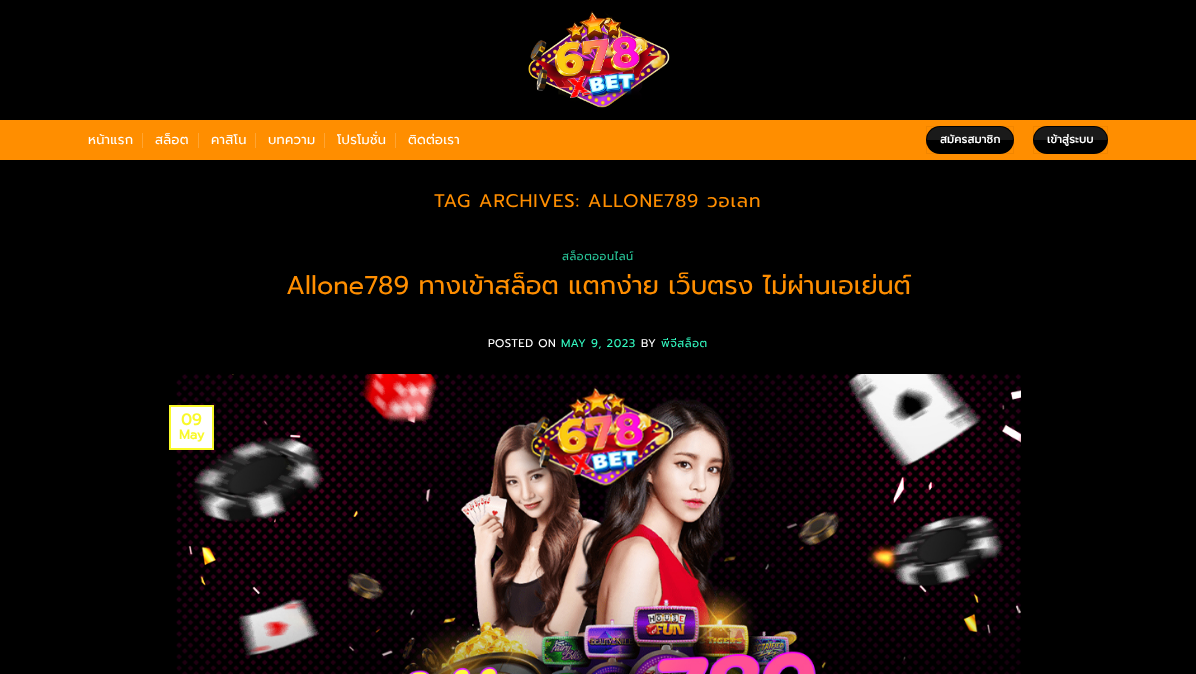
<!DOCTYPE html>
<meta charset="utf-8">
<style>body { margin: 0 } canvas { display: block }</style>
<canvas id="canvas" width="1196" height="674"></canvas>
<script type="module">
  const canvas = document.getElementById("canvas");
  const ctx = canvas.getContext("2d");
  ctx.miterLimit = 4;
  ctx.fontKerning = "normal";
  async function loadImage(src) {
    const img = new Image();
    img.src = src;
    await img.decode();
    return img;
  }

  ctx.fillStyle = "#000000";
  ctx.fillRect(0, 0, 1196, 674);
  ctx.drawImage(await loadImage("img1.png"), 528, 10, 142, 98);
  ctx.fillStyle = "#ff8e00";
  ctx.fillRect(0, 120, 1196, 40);
  ctx.letterSpacing = "0.25px";
  ctx.font = "13px Prompt";
  ctx.fillStyle = "#ffffff";
  ctx.fillText("หน้าแรก", 88, 144);
  ctx.fillStyle = "#ffa533";
  ctx.fillRect(142, 133, 1, 15);
  ctx.fillStyle = "#ffffff";
  ctx.fillText("สล็อต", 155, 144);
  ctx.fillStyle = "#ffa533";
  ctx.fillRect(198, 133, 1, 15);
  ctx.fillStyle = "#ffffff";
  ctx.fillText("คาสิโน", 211, 144);
  ctx.fillStyle = "#ffa533";
  ctx.fillRect(255, 133, 1, 15);
  ctx.fillStyle = "#ffffff";
  ctx.fillText("บทความ", 268, 144);
  ctx.fillStyle = "#ffa533";
  ctx.fillRect(324, 133, 1, 15);
  ctx.fillStyle = "#ffffff";
  ctx.fillText("โปรโมชั่น", 337, 144);
  ctx.fillStyle = "#ffa533";
  ctx.fillRect(395, 133, 1, 15);
  ctx.fillStyle = "#ffffff";
  ctx.fillText("ติดต่อเรา", 408, 144);
  ctx.fillStyle = "#000000";
  ctx.beginPath();
  ctx.roundRect(926, 126, 88, 28, 14);
  ctx.fill();
  ctx.strokeStyle = "rgba(0, 0, 0, 0.05)";
  ctx.strokeRect(926.5, 126.5, 87, 27);
  ctx.fillStyle = "rgba(255, 255, 255, 0.1)";
  ctx.beginPath();
  ctx.roundRect(927, 127, 86, 13, [13, 13, 0, 0]);
  ctx.fill();
  ctx.font = "bold 11px Prompt";
  ctx.fillStyle = "#ffffff";
  ctx.fillText("สมัครสมาชิก", 940, 143);
  ctx.fillStyle = "#000000";
  ctx.beginPath();
  ctx.roundRect(1033, 126, 75, 28, 14);
  ctx.fill();
  ctx.strokeRect(1033.5, 126.5, 74, 27);
  ctx.fillStyle = "rgba(255, 255, 255, 0.1)";
  ctx.beginPath();
  ctx.roundRect(1034, 127, 73, 13, [13, 13, 0, 0]);
  ctx.fill();
  ctx.fillStyle = "#ffffff";
  ctx.fillText("เข้าสู่ระบบ", 1047, 143);
  ctx.letterSpacing = "0.9px";
  ctx.font = "18.4px Prompt";
  ctx.fillStyle = "#ff8e00";
  ctx.fillText("TAG ARCHIVES: ALLONE789 วอเลท", 434, 207);
  ctx.letterSpacing = "0.5px";
  ctx.font = "11.25px Prompt";
  ctx.fillStyle = "#29c79a";
  ctx.fillText("สล็อตออนไลน์", 562, 260);
  ctx.letterSpacing = "0px";
  ctx.font = "25.6px Prompt";
  ctx.fillStyle = "#ff8e00";
  ctx.fillText("Allone789 ทางเข้าสล็อต แตกง่าย เว็บตรง ไม่ผ่านเอเย่นต์", 286, 294);
  ctx.letterSpacing = "0.5px";
  ctx.font = "11.25px Prompt";
  ctx.fillStyle = "#ffffff";
  ctx.fillText("POSTED ON", 488, 347);
  ctx.fillStyle = "#33f9c1";
  ctx.fillText("MAY 9, 2023", 561, 347);
  ctx.fillStyle = "#ffffff";
  ctx.fillText("BY", 641, 347);
  ctx.fillStyle = "#33f9c1";
  ctx.fillText("พีจีสล็อต", 661, 347);
  ctx.drawImage(await loadImage("img2.png"), 176, 374, 845, 300);
  ctx.fillStyle = "#ffffff";
  ctx.beginPath();
  ctx.rect(170, 406, 43, 43);
  ctx.fill();
  ctx.strokeStyle = "#f9f929";
  ctx.lineWidth = 2;
  ctx.stroke();
  ctx.letterSpacing = "0px";
  ctx.font = "bold 16px Prompt";
  ctx.fillStyle = "#f9f929";
  ctx.fillText("09", 181, 425);
  ctx.font = "bold 13px Prompt";
  ctx.fillText("May", 179, 439);
</script>
